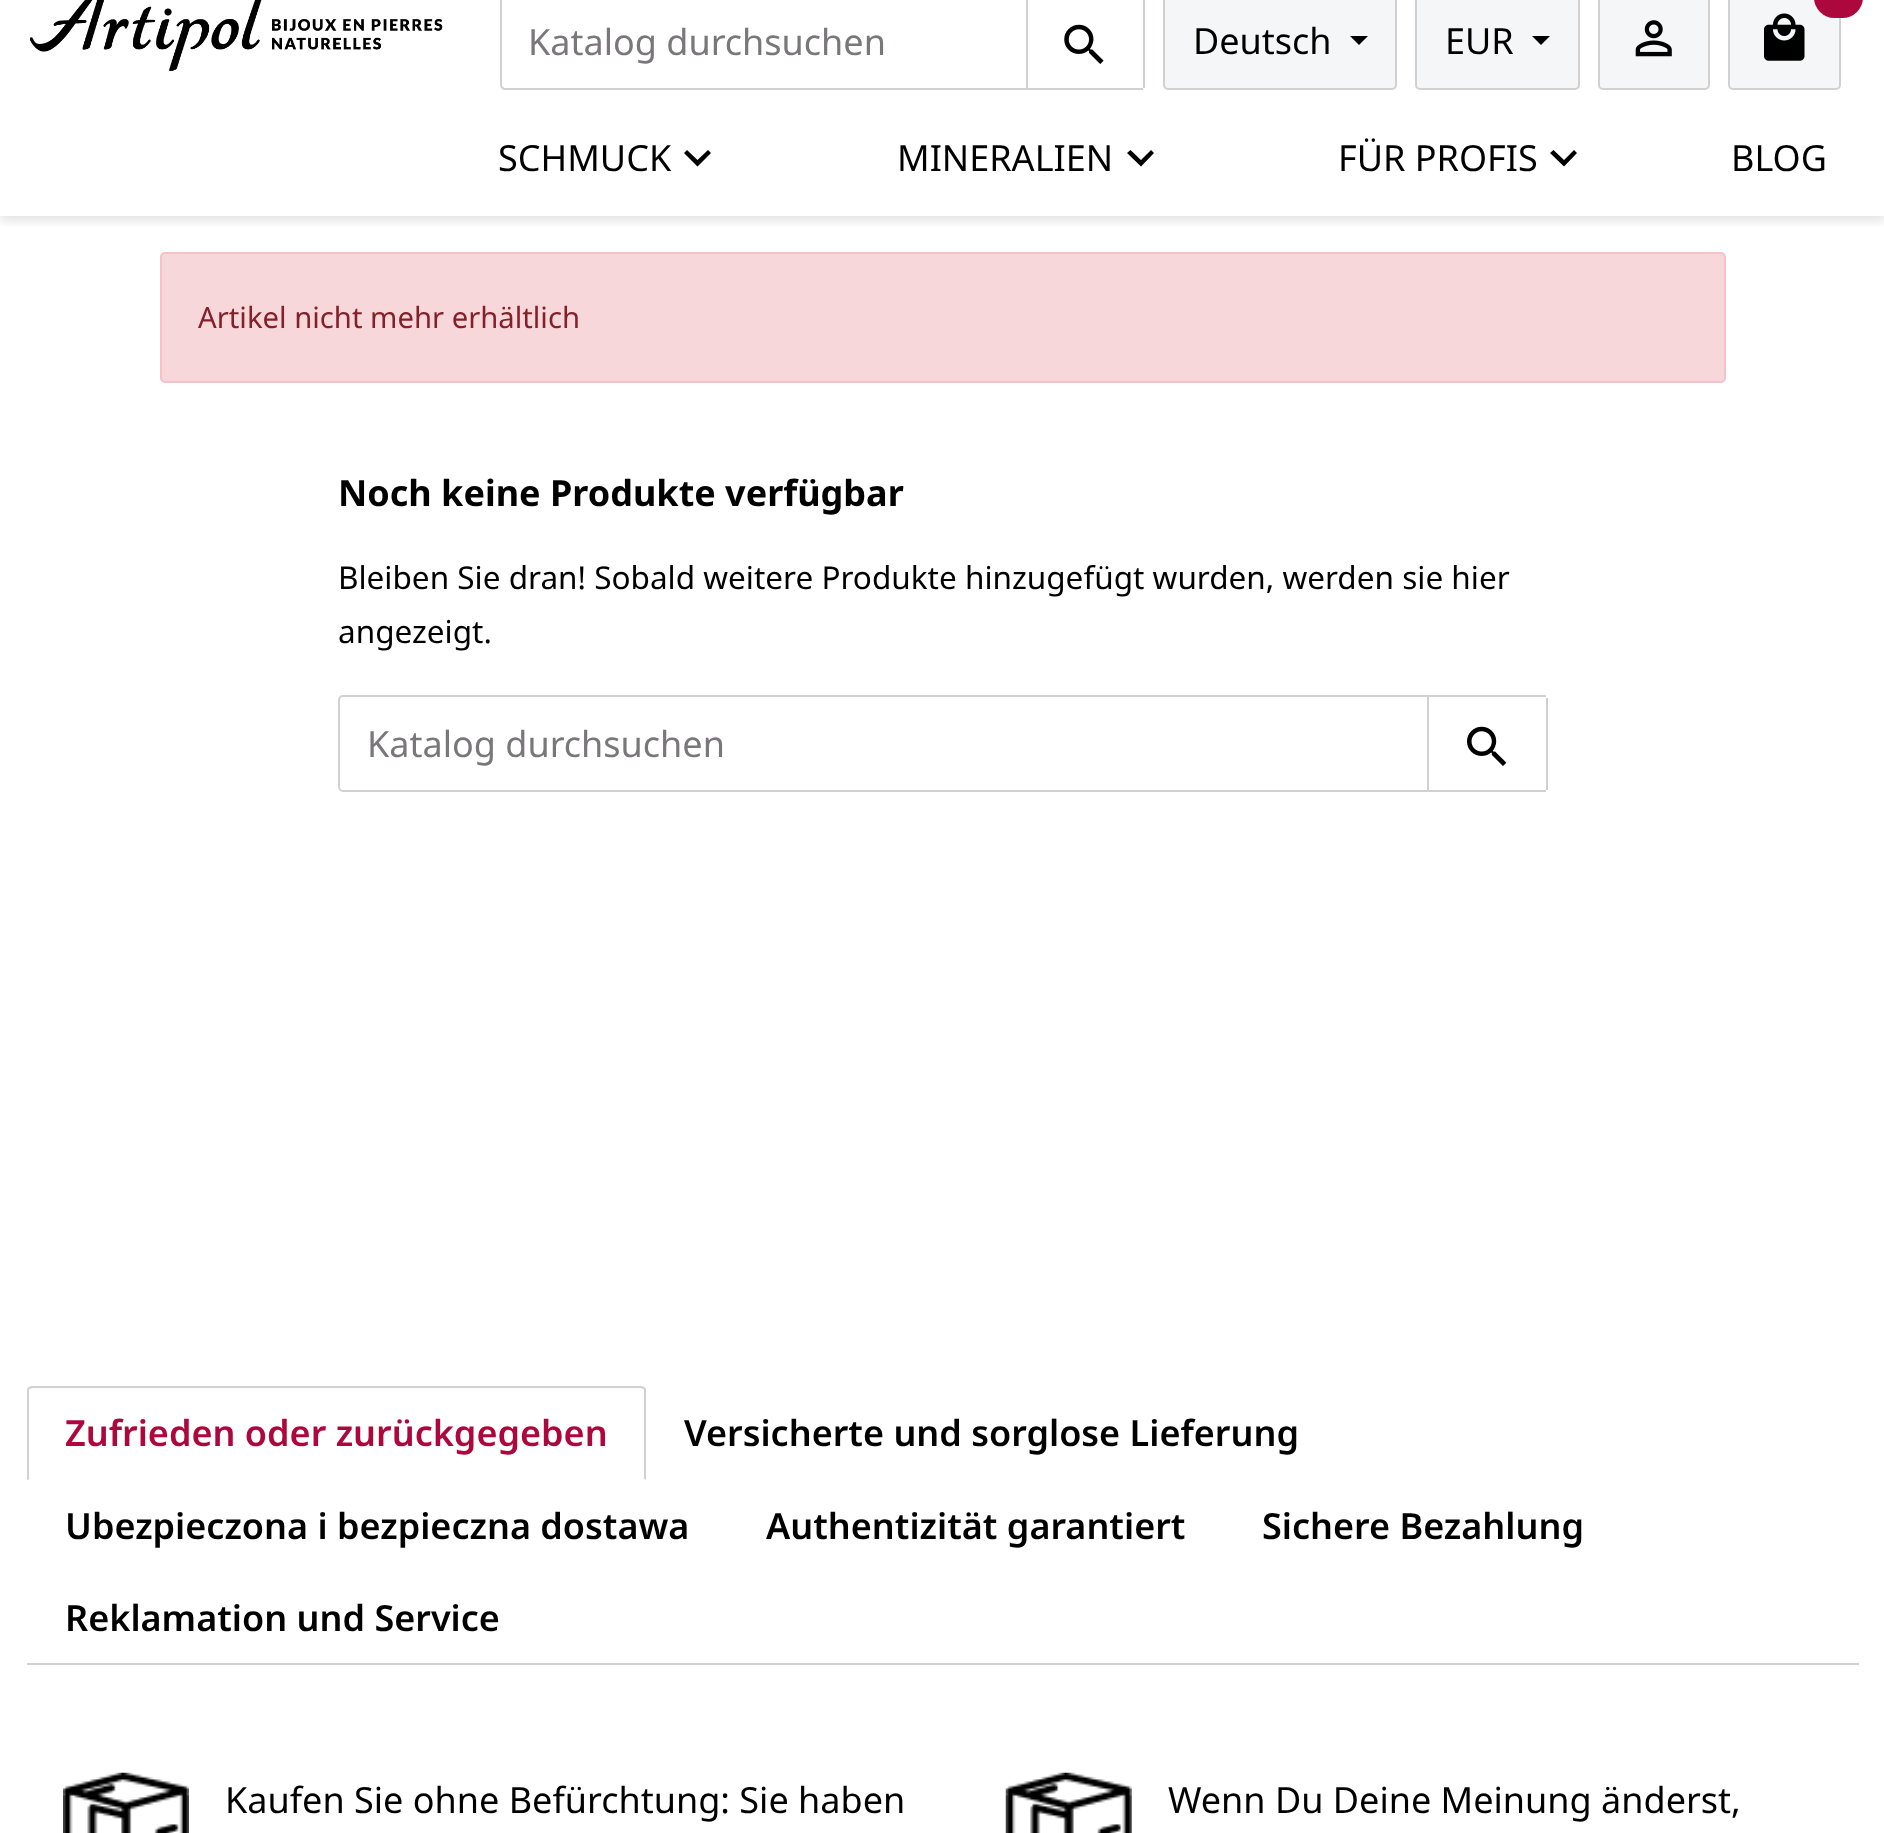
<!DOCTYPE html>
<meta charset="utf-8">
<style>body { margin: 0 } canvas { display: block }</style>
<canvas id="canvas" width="1884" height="1833"></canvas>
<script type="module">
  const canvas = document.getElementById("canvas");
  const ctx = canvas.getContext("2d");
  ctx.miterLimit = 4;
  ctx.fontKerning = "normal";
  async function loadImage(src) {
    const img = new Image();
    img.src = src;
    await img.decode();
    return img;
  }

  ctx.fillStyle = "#ffffff";
  ctx.fillRect(0, 0, 1884, 1833);
  ctx.save();
  ctx.beginPath();
  ctx.rect(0, 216, 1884, 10);
  ctx.clip();
  ctx.fillStyle = "rgba(0, 0, 0, 0.11)";
  ctx.filter = "blur(5.5px)";
  ctx.beginPath();
  ctx.rect(0, -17, 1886, 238);
  ctx.fill();
  ctx.filter = "none";
  ctx.restore();
  ctx.drawImage(await loadImage("img1.png"), 30, 0, 413, 71);
  ctx.beginPath();
  ctx.moveTo(505, -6);
  ctx.lineTo(1027, -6);
  ctx.lineTo(1027, 89);
  ctx.lineTo(505, 89);
  ctx.bezierCurveTo(503, 89, 501, 87, 501, 85);
  ctx.lineTo(501, -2);
  ctx.bezierCurveTo(501, -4, 503, -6, 505, -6);
  ctx.closePath();
  ctx.strokeStyle = "#d1d1d1";
  ctx.lineWidth = 2;
  ctx.stroke();
  ctx.font = "36px Noto Sans";
  ctx.fillStyle = "#797779";
  ctx.fillText("Katalog durchsuchen", 528, 55);
  ctx.fillStyle = "#d1d1d1";
  ctx.fillRect(1143, 0, 2, 88);
  ctx.fillRect(1026, 88, 117, 2);
  ctx.drawImage(await loadImage("img2.png"), 1064, 24, 40, 40);
  ctx.fillStyle = "#f5f6f7";
  ctx.beginPath();
  ctx.roundRect(1164, -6, 232, 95, 4);
  ctx.fill();
  ctx.stroke();
  ctx.fillStyle = "#000000";
  ctx.fillText("Deutsch", 1193, 54);
  ctx.beginPath();
  ctx.moveTo(1350, 36);
  ctx.lineTo(1368, 36);
  ctx.lineTo(1359, 45);
  ctx.closePath();
  ctx.fill();
  ctx.fillStyle = "#f5f6f7";
  ctx.beginPath();
  ctx.roundRect(1416, -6, 163, 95, 4);
  ctx.fill();
  ctx.stroke();
  ctx.fillStyle = "#000000";
  ctx.fillText("EUR", 1445, 54);
  ctx.beginPath();
  ctx.moveTo(1532, 36);
  ctx.lineTo(1550, 36);
  ctx.lineTo(1541, 45);
  ctx.closePath();
  ctx.fill();
  ctx.fillStyle = "#f5f6f7";
  ctx.beginPath();
  ctx.roundRect(1599, -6, 110, 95, 4);
  ctx.fill();
  ctx.stroke();
  ctx.drawImage(await loadImage("img3.png"), 1635, 20, 37, 37);
  ctx.beginPath();
  ctx.roundRect(1729, -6, 111, 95, 4);
  ctx.fill();
  ctx.stroke();
  ctx.fillStyle = "#ad083e";
  ctx.beginPath();
  ctx.roundRect(1814, -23, 49, 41, 22.5);
  ctx.fill();
  ctx.drawImage(await loadImage("img4.png"), 1764, 13, 41, 48);
  ctx.fillStyle = "#000000";
  ctx.fillText("SCHMUCK", 498, 171);
  ctx.beginPath();
  ctx.moveTo(708, 150);
  ctx.lineTo(711, 153);
  ctx.lineTo(697.5, 166.5);
  ctx.lineTo(684, 153);
  ctx.lineTo(687, 150);
  ctx.lineTo(697.5, 160);
  ctx.closePath();
  ctx.fill();
  ctx.fillText("MINERALIEN", 897, 171);
  ctx.beginPath();
  ctx.moveTo(1151, 150);
  ctx.lineTo(1154, 153);
  ctx.lineTo(1141, 166.5);
  ctx.lineTo(1127, 153);
  ctx.lineTo(1130.5, 150);
  ctx.lineTo(1141, 160);
  ctx.closePath();
  ctx.fill();
  ctx.fillText("FÜR PROFIS", 1338, 171);
  ctx.beginPath();
  ctx.moveTo(1574, 150);
  ctx.lineTo(1577, 153);
  ctx.lineTo(1564, 166.5);
  ctx.lineTo(1550, 153);
  ctx.lineTo(1553.5, 150);
  ctx.lineTo(1564, 160);
  ctx.closePath();
  ctx.fill();
  ctx.fillText("BLOG", 1731, 171);
  ctx.fillStyle = "#f8d7da";
  ctx.beginPath();
  ctx.roundRect(161, 253, 1564, 129, 4);
  ctx.fill();
  ctx.strokeStyle = "#f5c2c7";
  ctx.stroke();
  ctx.font = "29.25px Noto Sans";
  ctx.fillStyle = "#842029";
  ctx.fillText("Artikel nicht mehr erhältlich", 198, 328);
  ctx.font = "bold 36px Noto Sans";
  ctx.fillStyle = "#000000";
  ctx.fillText("Noch keine Produkte verfügbar", 338, 506);
  ctx.font = "31.5px Noto Sans";
  ctx.fillText("Bleiben Sie dran! Sobald weitere Produkte hinzugefügt wurden, werden sie hier", 338, 589);
  ctx.fillText("angezeigt.", 338, 643);
  ctx.beginPath();
  ctx.roundRect(339, 696, 1089, 95, [4, 0, 0, 4]);
  ctx.strokeStyle = "#d1d1d1";
  ctx.stroke();
  ctx.font = "36px Noto Sans";
  ctx.fillStyle = "#797779";
  ctx.fillText("Katalog durchsuchen", 367, 757);
  ctx.fillStyle = "#d1d1d1";
  ctx.fillRect(1427, 695, 119, 2);
  ctx.fillRect(1546, 698, 2, 92);
  ctx.fillRect(1427, 790, 119, 2);
  ctx.drawImage(await loadImage("img5.png"), 1467, 726, 40, 40);
  ctx.fillRect(27, 1663, 1832, 2);
  ctx.beginPath();
  ctx.moveTo(32, 1386);
  ctx.bezierCurveTo(30, 1386, 29, 1387, 28, 1387);
  ctx.lineTo(30, 1389);
  ctx.lineTo(32, 1388);
  ctx.lineTo(641, 1388);
  ctx.lineTo(643, 1389);
  ctx.lineTo(645, 1387);
  ctx.lineTo(641, 1386);
  ctx.closePath();
  ctx.fill();
  ctx.beginPath();
  ctx.moveTo(646, 1480);
  ctx.lineTo(643, 1478);
  ctx.lineTo(644, 1478);
  ctx.lineTo(644, 1390);
  ctx.lineTo(643, 1389);
  ctx.lineTo(645, 1387);
  ctx.lineTo(646, 1389);
  ctx.closePath();
  ctx.fill();
  ctx.fillStyle = "#ffffff";
  ctx.beginPath();
  ctx.moveTo(645, 1480);
  ctx.lineTo(28, 1480);
  ctx.lineTo(30, 1478);
  ctx.lineTo(643, 1478);
  ctx.closePath();
  ctx.fill();
  ctx.fillStyle = "#d1d1d1";
  ctx.beginPath();
  ctx.moveTo(27, 1390);
  ctx.lineTo(27, 1480);
  ctx.lineTo(28, 1480);
  ctx.lineTo(30, 1478);
  ctx.lineTo(29, 1478);
  ctx.lineTo(29, 1390);
  ctx.lineTo(30, 1389);
  ctx.lineTo(28, 1387);
  ctx.closePath();
  ctx.fill();
  ctx.font = "600 36px Noto Sans";
  ctx.fillStyle = "#ad083e";
  ctx.fillText("Zufrieden oder zurückgegeben", 65, 1446);
  ctx.fillStyle = "#000000";
  ctx.fillText("Versicherte und sorglose Lieferung", 684, 1446);
  ctx.fillText("Ubezpieczona i bezpieczna dostawa", 65, 1539);
  ctx.fillText("Authentizität garantiert", 766, 1539);
  ctx.fillText("Sichere Bezahlung", 1262, 1539);
  ctx.fillText("Reklamation und Service", 65, 1631);
  ctx.drawImage(await loadImage("img6.png"), 63, 1772, 126, 61);
  ctx.font = "36px Noto Sans";
  ctx.fillText("Kaufen Sie ohne Befürchtung: Sie haben", 225, 1813);
  ctx.drawImage(await loadImage("img7.png"), 1005, 1772, 127, 61);
  ctx.fillText("Wenn Du Deine Meinung änderst,", 1168, 1813);
</script>
